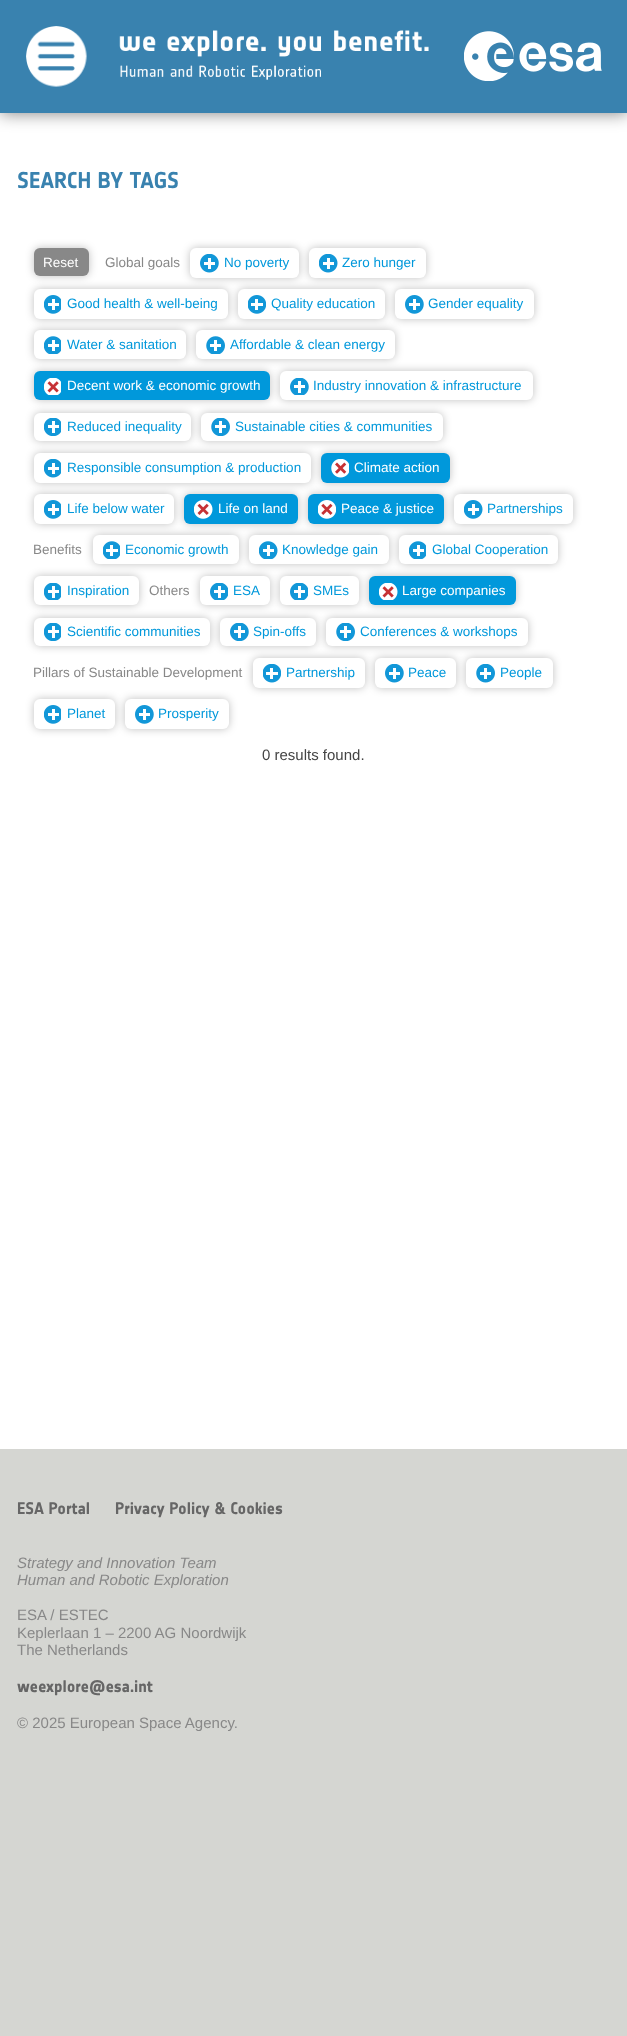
<!DOCTYPE html>
<meta charset="utf-8">
<style>body { margin: 0 } canvas { display: block }</style>
<canvas id="canvas" width="627" height="2036"></canvas>
<script type="module">
  const canvas = document.getElementById("canvas");
  const ctx = canvas.getContext("2d");
  ctx.miterLimit = 4;
  ctx.fontKerning = "normal";
  async function loadImage(src) {
    const img = new Image();
    img.src = src;
    await img.decode();
    return img;
  }

  ctx.fillStyle = "#d5d6d2";
  ctx.fillRect(0, 0, 627, 2036);
  ctx.fillStyle = "#ffffff";
  ctx.fillRect(0, 113, 627, 1336);
  ctx.fillStyle = "rgba(0, 0, 0, 0.5)";
  ctx.filter = "blur(8.5px)";
  ctx.beginPath();
  ctx.rect(0, 0, 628, 113);
  ctx.fill();
  ctx.filter = "none";
  ctx.fillStyle = "#3982af";
  ctx.fillRect(0, 0, 627, 113);
  ctx.drawImage(await loadImage("img1.png"), 26, 26, 61, 61);
  ctx.drawImage(await loadImage("img2.png"), 119, 30, 310, 50);
  ctx.drawImage(await loadImage("img3.png"), 464, 31, 138, 50);
  ctx.font = "bold 22.5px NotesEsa";
  ctx.fillText("SEARCH BY TAGS", 17, 188);
  ctx.fillStyle = "rgba(0, 0, 0, 0.25)";
  ctx.filter = "blur(4px)";
  ctx.beginPath();
  ctx.roundRect(34, 248, 55, 28, 6);
  ctx.fill();
  ctx.filter = "none";
  ctx.fillStyle = "#888888";
  ctx.beginPath();
  ctx.roundRect(34, 248, 55, 28, 6);
  ctx.fill();
  ctx.font = "13.5px Liberation Sans";
  ctx.fillStyle = "#ffffff";
  ctx.fillText("Reset", 43, 267);
  ctx.fillStyle = "#888888";
  ctx.fillText("Global goals", 105, 267);
  ctx.fillStyle = "rgba(0, 0, 0, 0.25)";
  ctx.filter = "blur(4px)";
  ctx.beginPath();
  ctx.roundRect(190, 248, 109, 30, 6);
  ctx.fill();
  ctx.filter = "none";
  ctx.fillStyle = "#ffffff";
  ctx.beginPath();
  ctx.roundRect(190, 248, 109, 30, 6);
  ctx.fill();
  ctx.drawImage(await loadImage("img4.png"), 200, 254, 19, 19);
  ctx.fillStyle = "#0098db";
  ctx.fillText("No poverty", 224, 267);
  ctx.fillStyle = "rgba(0, 0, 0, 0.25)";
  ctx.filter = "blur(4px)";
  ctx.beginPath();
  ctx.roundRect(309, 248, 117, 30, 6);
  ctx.fill();
  ctx.filter = "none";
  ctx.fillStyle = "#ffffff";
  ctx.beginPath();
  ctx.roundRect(309, 248, 117, 30, 6);
  ctx.fill();
  ctx.drawImage(await loadImage("img5.png"), 319, 254, 19, 19);
  ctx.fillStyle = "#0098db";
  ctx.fillText("Zero hunger", 342, 267);
  ctx.fillStyle = "rgba(0, 0, 0, 0.25)";
  ctx.filter = "blur(4px)";
  ctx.beginPath();
  ctx.roundRect(34, 289, 194, 30, 6);
  ctx.fill();
  ctx.filter = "none";
  ctx.fillStyle = "#ffffff";
  ctx.beginPath();
  ctx.roundRect(34, 289, 194, 30, 6);
  ctx.fill();
  ctx.drawImage(await loadImage("img6.png"), 44, 295, 17, 19);
  ctx.fillStyle = "#0098db";
  ctx.fillText("Good health & well-being", 67, 308);
  ctx.fillStyle = "rgba(0, 0, 0, 0.25)";
  ctx.filter = "blur(4px)";
  ctx.beginPath();
  ctx.roundRect(238, 289, 147, 30, 6);
  ctx.fill();
  ctx.filter = "none";
  ctx.fillStyle = "#ffffff";
  ctx.beginPath();
  ctx.roundRect(238, 289, 147, 30, 6);
  ctx.fill();
  ctx.drawImage(await loadImage("img7.png"), 248, 295, 18, 19);
  ctx.fillStyle = "#0098db";
  ctx.fillText("Quality education", 271, 308);
  ctx.fillStyle = "rgba(0, 0, 0, 0.25)";
  ctx.filter = "blur(4px)";
  ctx.beginPath();
  ctx.roundRect(395, 289, 139, 30, 6);
  ctx.fill();
  ctx.filter = "none";
  ctx.fillStyle = "#ffffff";
  ctx.beginPath();
  ctx.roundRect(395, 289, 139, 30, 6);
  ctx.fill();
  ctx.drawImage(await loadImage("img8.png"), 405, 295, 19, 19);
  ctx.fillStyle = "#0098db";
  ctx.fillText("Gender equality", 428, 308);
  ctx.fillStyle = "rgba(0, 0, 0, 0.25)";
  ctx.filter = "blur(4px)";
  ctx.beginPath();
  ctx.roundRect(34, 330, 152, 29, 6);
  ctx.fill();
  ctx.filter = "none";
  ctx.fillStyle = "#ffffff";
  ctx.beginPath();
  ctx.roundRect(34, 330, 152, 29, 6);
  ctx.fill();
  ctx.drawImage(await loadImage("img9.png"), 44, 336, 17, 18);
  ctx.fillStyle = "#0098db";
  ctx.fillText("Water & sanitation", 67, 349);
  ctx.fillStyle = "rgba(0, 0, 0, 0.25)";
  ctx.filter = "blur(4px)";
  ctx.beginPath();
  ctx.roundRect(196, 330, 199, 29, 6);
  ctx.fill();
  ctx.filter = "none";
  ctx.fillStyle = "#ffffff";
  ctx.beginPath();
  ctx.roundRect(196, 330, 199, 29, 6);
  ctx.fill();
  ctx.drawImage(await loadImage("img10.png"), 206, 336, 19, 18);
  ctx.fillStyle = "#0098db";
  ctx.fillText("Affordable & clean energy", 230, 349);
  ctx.fillStyle = "rgba(0, 0, 0, 0.25)";
  ctx.filter = "blur(4px)";
  ctx.beginPath();
  ctx.roundRect(34, 371, 236, 29, 6);
  ctx.fill();
  ctx.filter = "none";
  ctx.fillStyle = "#0098db";
  ctx.beginPath();
  ctx.roundRect(34, 371, 236, 29, 6);
  ctx.fill();
  ctx.drawImage(await loadImage("img11.png"), 44, 378, 17, 17);
  ctx.fillStyle = "#ffffff";
  ctx.fillText("Decent work & economic growth", 67, 390);
  ctx.fillStyle = "rgba(0, 0, 0, 0.25)";
  ctx.filter = "blur(4px)";
  ctx.beginPath();
  ctx.roundRect(280, 371, 253, 29, 6);
  ctx.fill();
  ctx.filter = "none";
  ctx.fillStyle = "#ffffff";
  ctx.beginPath();
  ctx.roundRect(280, 371, 253, 29, 6);
  ctx.fill();
  ctx.drawImage(await loadImage("img12.png"), 290, 378, 19, 17);
  ctx.fillStyle = "#0098db";
  ctx.fillText("Industry innovation & infrastructure", 313, 390);
  ctx.fillStyle = "rgba(0, 0, 0, 0.25)";
  ctx.filter = "blur(4px)";
  ctx.beginPath();
  ctx.roundRect(34, 413, 157, 28, 6);
  ctx.fill();
  ctx.filter = "none";
  ctx.fillStyle = "#ffffff";
  ctx.beginPath();
  ctx.roundRect(34, 413, 157, 28, 6);
  ctx.fill();
  ctx.drawImage(await loadImage("img13.png"), 44, 418, 17, 18);
  ctx.fillStyle = "#0098db";
  ctx.fillText("Reduced inequality", 67, 431);
  ctx.fillStyle = "rgba(0, 0, 0, 0.25)";
  ctx.filter = "blur(4px)";
  ctx.beginPath();
  ctx.roundRect(201, 413, 242, 28, 6);
  ctx.fill();
  ctx.filter = "none";
  ctx.fillStyle = "#ffffff";
  ctx.beginPath();
  ctx.roundRect(201, 413, 242, 28, 6);
  ctx.fill();
  ctx.drawImage(await loadImage("img14.png"), 211, 418, 19, 18);
  ctx.fillStyle = "#0098db";
  ctx.fillText("Sustainable cities & communities", 235, 431);
  ctx.fillStyle = "rgba(0, 0, 0, 0.25)";
  ctx.filter = "blur(4px)";
  ctx.beginPath();
  ctx.roundRect(34, 453, 277, 30, 6);
  ctx.fill();
  ctx.filter = "none";
  ctx.fillStyle = "#ffffff";
  ctx.beginPath();
  ctx.roundRect(34, 453, 277, 30, 6);
  ctx.fill();
  ctx.drawImage(await loadImage("img15.png"), 44, 459, 17, 19);
  ctx.fillStyle = "#0098db";
  ctx.fillText("Responsible consumption & production", 67, 472);
  ctx.fillStyle = "rgba(0, 0, 0, 0.25)";
  ctx.filter = "blur(4px)";
  ctx.beginPath();
  ctx.roundRect(321, 453, 129, 30, 6);
  ctx.fill();
  ctx.filter = "none";
  ctx.fillStyle = "#0098db";
  ctx.beginPath();
  ctx.roundRect(321, 453, 129, 30, 6);
  ctx.fill();
  ctx.drawImage(await loadImage("img16.png"), 331, 459, 18, 19);
  ctx.fillStyle = "#ffffff";
  ctx.fillText("Climate action", 354, 472);
  ctx.fillStyle = "rgba(0, 0, 0, 0.25)";
  ctx.filter = "blur(4px)";
  ctx.beginPath();
  ctx.roundRect(34, 494, 140, 30, 6);
  ctx.fill();
  ctx.filter = "none";
  ctx.fillStyle = "#ffffff";
  ctx.beginPath();
  ctx.roundRect(34, 494, 140, 30, 6);
  ctx.fill();
  ctx.drawImage(await loadImage("img6.png"), 44, 500, 17, 19);
  ctx.fillStyle = "#0098db";
  ctx.fillText("Life below water", 67, 513);
  ctx.fillStyle = "rgba(0, 0, 0, 0.25)";
  ctx.filter = "blur(4px)";
  ctx.beginPath();
  ctx.roundRect(184, 494, 114, 30, 6);
  ctx.fill();
  ctx.filter = "none";
  ctx.fillStyle = "#0098db";
  ctx.beginPath();
  ctx.roundRect(184, 494, 114, 30, 6);
  ctx.fill();
  ctx.drawImage(await loadImage("img17.png"), 194, 500, 19, 19);
  ctx.fillStyle = "#ffffff";
  ctx.fillText("Life on land", 218, 513);
  ctx.fillStyle = "rgba(0, 0, 0, 0.25)";
  ctx.filter = "blur(4px)";
  ctx.beginPath();
  ctx.roundRect(308, 494, 136, 30, 6);
  ctx.fill();
  ctx.filter = "none";
  ctx.fillStyle = "#0098db";
  ctx.beginPath();
  ctx.roundRect(308, 494, 136, 30, 6);
  ctx.fill();
  ctx.drawImage(await loadImage("img18.png"), 318, 500, 18, 19);
  ctx.fillStyle = "#ffffff";
  ctx.fillText("Peace & justice", 341, 513);
  ctx.fillStyle = "rgba(0, 0, 0, 0.25)";
  ctx.filter = "blur(4px)";
  ctx.beginPath();
  ctx.roundRect(454, 494, 119, 30, 6);
  ctx.fill();
  ctx.filter = "none";
  ctx.fillStyle = "#ffffff";
  ctx.beginPath();
  ctx.roundRect(454, 494, 119, 30, 6);
  ctx.fill();
  ctx.drawImage(await loadImage("img19.png"), 464, 500, 19, 19);
  ctx.fillStyle = "#0098db";
  ctx.fillText("Partnerships", 487, 513);
  ctx.fillStyle = "#888888";
  ctx.fillText("Benefits", 33, 554);
  ctx.fillStyle = "rgba(0, 0, 0, 0.25)";
  ctx.filter = "blur(4px)";
  ctx.beginPath();
  ctx.roundRect(93, 535, 146, 29, 6);
  ctx.fill();
  ctx.filter = "none";
  ctx.fillStyle = "#ffffff";
  ctx.beginPath();
  ctx.roundRect(93, 535, 146, 29, 6);
  ctx.fill();
  ctx.drawImage(await loadImage("img20.png"), 103, 541, 17, 18);
  ctx.fillStyle = "#0098db";
  ctx.fillText("Economic growth", 125, 554);
  ctx.fillStyle = "rgba(0, 0, 0, 0.25)";
  ctx.filter = "blur(4px)";
  ctx.beginPath();
  ctx.roundRect(249, 535, 140, 29, 6);
  ctx.fill();
  ctx.filter = "none";
  ctx.fillStyle = "#ffffff";
  ctx.beginPath();
  ctx.roundRect(249, 535, 140, 29, 6);
  ctx.fill();
  ctx.drawImage(await loadImage("img21.png"), 259, 541, 19, 18);
  ctx.fillStyle = "#0098db";
  ctx.fillText("Knowledge gain", 282, 554);
  ctx.fillStyle = "rgba(0, 0, 0, 0.25)";
  ctx.filter = "blur(4px)";
  ctx.beginPath();
  ctx.roundRect(399, 535, 159, 29, 6);
  ctx.fill();
  ctx.filter = "none";
  ctx.fillStyle = "#ffffff";
  ctx.beginPath();
  ctx.roundRect(399, 535, 159, 29, 6);
  ctx.fill();
  ctx.drawImage(await loadImage("img9.png"), 409, 541, 17, 18);
  ctx.fillStyle = "#0098db";
  ctx.fillText("Global Cooperation", 432, 554);
  ctx.fillStyle = "rgba(0, 0, 0, 0.25)";
  ctx.filter = "blur(4px)";
  ctx.beginPath();
  ctx.roundRect(34, 576, 105, 29, 6);
  ctx.fill();
  ctx.filter = "none";
  ctx.fillStyle = "#ffffff";
  ctx.beginPath();
  ctx.roundRect(34, 576, 105, 29, 6);
  ctx.fill();
  ctx.drawImage(await loadImage("img22.png"), 44, 583, 17, 17);
  ctx.fillStyle = "#0098db";
  ctx.fillText("Inspiration", 67, 595);
  ctx.fillStyle = "#888888";
  ctx.fillText("Others", 149, 595);
  ctx.fillStyle = "rgba(0, 0, 0, 0.25)";
  ctx.filter = "blur(4px)";
  ctx.beginPath();
  ctx.roundRect(200, 576, 70, 29, 6);
  ctx.fill();
  ctx.filter = "none";
  ctx.fillStyle = "#ffffff";
  ctx.beginPath();
  ctx.roundRect(200, 576, 70, 29, 6);
  ctx.fill();
  ctx.drawImage(await loadImage("img23.png"), 210, 583, 18, 17);
  ctx.fillStyle = "#0098db";
  ctx.fillText("ESA", 233, 595);
  ctx.fillStyle = "rgba(0, 0, 0, 0.25)";
  ctx.filter = "blur(4px)";
  ctx.beginPath();
  ctx.roundRect(280, 576, 79, 29, 6);
  ctx.fill();
  ctx.filter = "none";
  ctx.fillStyle = "#ffffff";
  ctx.beginPath();
  ctx.roundRect(280, 576, 79, 29, 6);
  ctx.fill();
  ctx.drawImage(await loadImage("img23.png"), 290, 583, 18, 17);
  ctx.fillStyle = "#0098db";
  ctx.fillText("SMEs", 313, 595);
  ctx.fillStyle = "rgba(0, 0, 0, 0.25)";
  ctx.filter = "blur(4px)";
  ctx.beginPath();
  ctx.roundRect(369, 576, 147, 29, 6);
  ctx.fill();
  ctx.filter = "none";
  ctx.fillStyle = "#0098db";
  ctx.beginPath();
  ctx.roundRect(369, 576, 147, 29, 6);
  ctx.fill();
  ctx.drawImage(await loadImage("img24.png"), 379, 583, 19, 17);
  ctx.fillStyle = "#ffffff";
  ctx.fillText("Large companies", 402, 595);
  ctx.fillStyle = "rgba(0, 0, 0, 0.25)";
  ctx.filter = "blur(4px)";
  ctx.beginPath();
  ctx.roundRect(34, 618, 176, 28, 6);
  ctx.fill();
  ctx.filter = "none";
  ctx.fillStyle = "#ffffff";
  ctx.beginPath();
  ctx.roundRect(34, 618, 176, 28, 6);
  ctx.fill();
  ctx.drawImage(await loadImage("img13.png"), 44, 623, 17, 18);
  ctx.fillStyle = "#0098db";
  ctx.fillText("Scientific communities", 67, 636);
  ctx.fillStyle = "rgba(0, 0, 0, 0.25)";
  ctx.filter = "blur(4px)";
  ctx.beginPath();
  ctx.roundRect(220, 618, 96, 28, 6);
  ctx.fill();
  ctx.filter = "none";
  ctx.fillStyle = "#ffffff";
  ctx.beginPath();
  ctx.roundRect(220, 618, 96, 28, 6);
  ctx.fill();
  ctx.drawImage(await loadImage("img25.png"), 230, 623, 19, 18);
  ctx.fillStyle = "#0098db";
  ctx.fillText("Spin-offs", 253, 636);
  ctx.fillStyle = "rgba(0, 0, 0, 0.25)";
  ctx.filter = "blur(4px)";
  ctx.beginPath();
  ctx.roundRect(326, 618, 202, 28, 6);
  ctx.fill();
  ctx.filter = "none";
  ctx.fillStyle = "#ffffff";
  ctx.beginPath();
  ctx.roundRect(326, 618, 202, 28, 6);
  ctx.fill();
  ctx.drawImage(await loadImage("img14.png"), 336, 623, 19, 18);
  ctx.fillStyle = "#0098db";
  ctx.fillText("Conferences & workshops", 360, 636);
  ctx.fillStyle = "#888888";
  ctx.fillText("Pillars of Sustainable Development", 33, 677);
  ctx.fillStyle = "rgba(0, 0, 0, 0.25)";
  ctx.filter = "blur(4px)";
  ctx.beginPath();
  ctx.roundRect(253, 658, 112, 30, 6);
  ctx.fill();
  ctx.filter = "none";
  ctx.fillStyle = "#ffffff";
  ctx.beginPath();
  ctx.roundRect(253, 658, 112, 30, 6);
  ctx.fill();
  ctx.drawImage(await loadImage("img26.png"), 263, 664, 18, 19);
  ctx.fillStyle = "#0098db";
  ctx.fillText("Partnership", 286, 677);
  ctx.fillStyle = "rgba(0, 0, 0, 0.25)";
  ctx.filter = "blur(4px)";
  ctx.beginPath();
  ctx.roundRect(375, 658, 81, 30, 6);
  ctx.fill();
  ctx.filter = "none";
  ctx.fillStyle = "#ffffff";
  ctx.beginPath();
  ctx.roundRect(375, 658, 81, 30, 6);
  ctx.fill();
  ctx.drawImage(await loadImage("img4.png"), 385, 664, 19, 19);
  ctx.fillStyle = "#0098db";
  ctx.fillText("Peace", 408, 677);
  ctx.fillStyle = "rgba(0, 0, 0, 0.25)";
  ctx.filter = "blur(4px)";
  ctx.beginPath();
  ctx.roundRect(466, 658, 87, 30, 6);
  ctx.fill();
  ctx.filter = "none";
  ctx.fillStyle = "#ffffff";
  ctx.beginPath();
  ctx.roundRect(466, 658, 87, 30, 6);
  ctx.fill();
  ctx.drawImage(await loadImage("img27.png"), 476, 664, 19, 19);
  ctx.fillStyle = "#0098db";
  ctx.fillText("People", 500, 677);
  ctx.fillStyle = "rgba(0, 0, 0, 0.25)";
  ctx.filter = "blur(4px)";
  ctx.beginPath();
  ctx.roundRect(34, 699, 81, 30, 6);
  ctx.fill();
  ctx.filter = "none";
  ctx.fillStyle = "#ffffff";
  ctx.beginPath();
  ctx.roundRect(34, 699, 81, 30, 6);
  ctx.fill();
  ctx.drawImage(await loadImage("img6.png"), 44, 705, 17, 19);
  ctx.fillStyle = "#0098db";
  ctx.fillText("Planet", 67, 718);
  ctx.fillStyle = "rgba(0, 0, 0, 0.25)";
  ctx.filter = "blur(4px)";
  ctx.beginPath();
  ctx.roundRect(125, 699, 104, 30, 6);
  ctx.fill();
  ctx.filter = "none";
  ctx.fillStyle = "#ffffff";
  ctx.beginPath();
  ctx.roundRect(125, 699, 104, 30, 6);
  ctx.fill();
  ctx.drawImage(await loadImage("img8.png"), 135, 705, 19, 19);
  ctx.fillStyle = "#0098db";
  ctx.fillText("Prosperity", 158, 718);
  ctx.font = "15px Liberation Sans";
  ctx.fillStyle = "#444444";
  ctx.fillText("0 results found.", 262, 760);
  ctx.font = "bold 16.5px NotesEsa";
  ctx.fillStyle = "#666666";
  ctx.fillText("ESA Portal", 17, 1514);
  ctx.fillText("Privacy Policy & Cookies", 115, 1514);
  ctx.font = "italic 15px Liberation Sans";
  ctx.fillStyle = "#888888";
  ctx.fillText("Strategy and Innovation Team", 17, 1568);
  ctx.fillText("Human and Robotic Exploration", 17, 1585);
  ctx.font = "15px Liberation Sans";
  ctx.fillText("ESA / ESTEC", 17, 1620);
  ctx.fillText("Keplerlaan 1 – 2200 AG Noordwijk", 17, 1638);
  ctx.fillText("The Netherlands", 17, 1655);
  ctx.font = "bold 16.5px NotesEsa";
  ctx.fillStyle = "#666666";
  ctx.fillText("weexplore@esa.int", 17, 1692);
  ctx.font = "15px Liberation Sans";
  ctx.fillStyle = "#888888";
  ctx.fillText("© 2025 European Space Agency.", 17, 1728);
</script>
